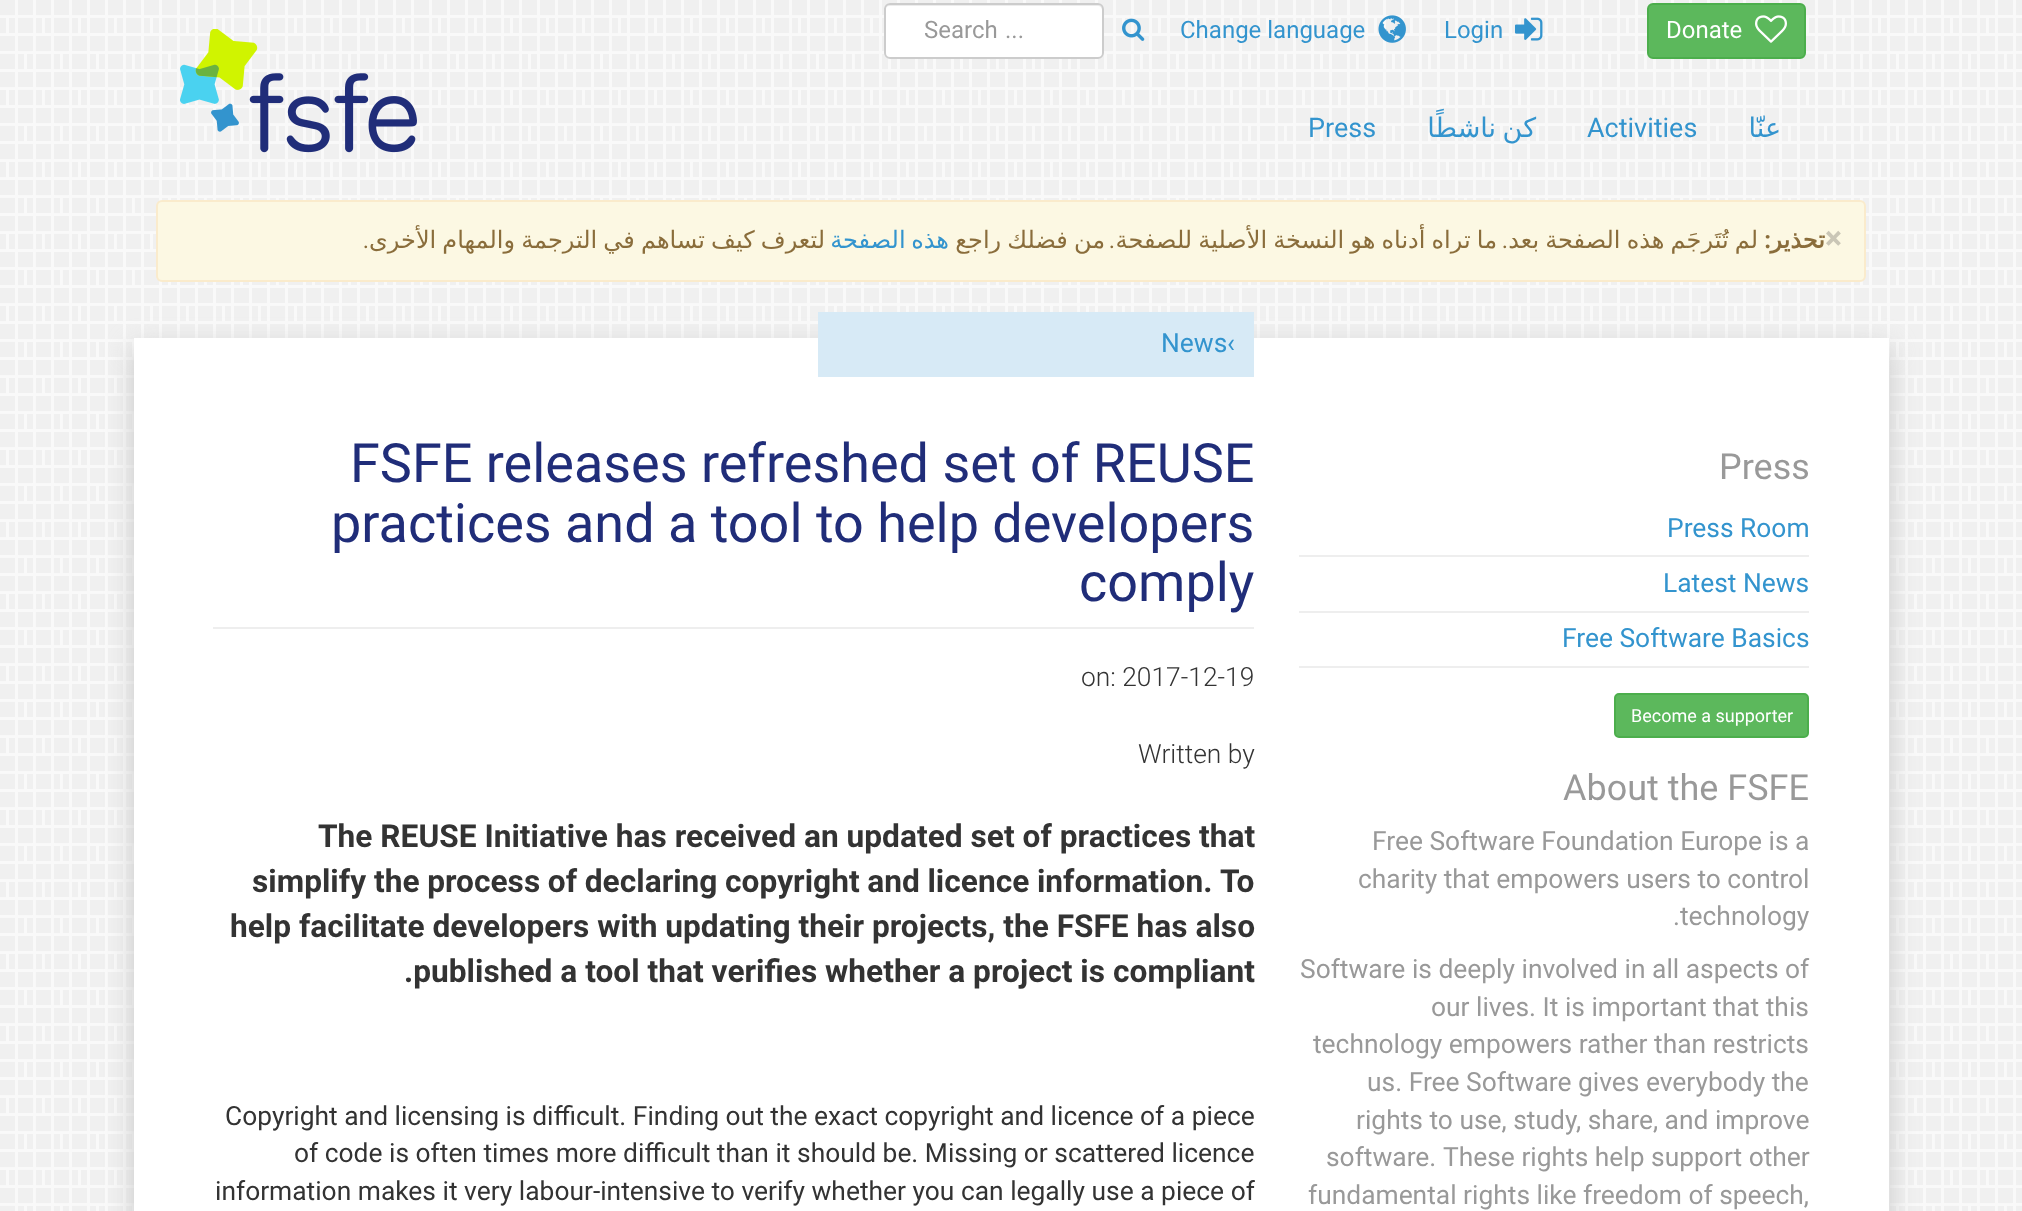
<!DOCTYPE html>
<meta charset="utf-8">
<style>body { margin: 0 } canvas { display: block }</style>
<canvas id="canvas" width="2022" height="1211"></canvas>
<script type="module">
  const canvas = document.getElementById("canvas");
  const ctx = canvas.getContext("2d");
  ctx.miterLimit = 4;
  ctx.fontKerning = "normal";
  async function loadImage(src) {
    const img = new Image();
    img.src = src;
    await img.decode();
    return img;
  }

  ctx.fillStyle = "#ffffff";
  ctx.fillRect(0, 0, 2022, 1211);
  ctx.drawImage(await loadImage("img1.png"), 0, 0, 2022, 1211);
  ctx.drawImage(await loadImage("img2.png"), 180, 29, 237, 124);
  ctx.beginPath();
  ctx.roundRect(884, 3, 220, 56, 6);
  ctx.fill();
  ctx.fillStyle = "#ececec";
  ctx.beginPath();
  ctx.moveTo(890, 6);
  ctx.lineTo(1098, 6);
  ctx.bezierCurveTo(1100, 6, 1102, 8, 1102, 10);
  ctx.lineTo(1102, 55);
  ctx.bezierCurveTo(1103, 54, 1103, 53, 1103, 52);
  ctx.lineTo(1103, 10);
  ctx.bezierCurveTo(1103, 7, 1101, 5, 1098, 5);
  ctx.lineTo(890, 5);
  ctx.bezierCurveTo(887, 5, 885, 7, 885, 10);
  ctx.bezierCurveTo(885, 8, 887, 6, 890, 6);
  ctx.closePath();
  ctx.fill();
  ctx.beginPath();
  ctx.roundRect(885, 4, 218, 54, 5);
  ctx.strokeStyle = "#cccccc";
  ctx.lineWidth = 2;
  ctx.stroke();
  ctx.font = "24px Roboto";
  ctx.fillStyle = "#999999";
  ctx.fillText("Search", 924, 38);
  ctx.fillText("...", 1005, 38);
  ctx.drawImage(await loadImage("img3.png"), 1122, 18, 23, 23);
  ctx.fillStyle = "#3394ce";
  ctx.fillText("Change language", 1180, 38);
  ctx.drawImage(await loadImage("img4.png"), 1378, 15, 28, 28);
  ctx.fillText("Login", 1444, 38);
  ctx.drawImage(await loadImage("img5.png"), 1515, 17, 28, 24);
  ctx.fillStyle = "#5cb85c";
  ctx.beginPath();
  ctx.roundRect(1648, 4, 157, 54, 5);
  ctx.fill();
  ctx.strokeStyle = "#4cae4c";
  ctx.stroke();
  ctx.fillStyle = "#ffffff";
  ctx.fillText("Donate", 1666, 38);
  ctx.drawImage(await loadImage("img6.png"), 1755, 15, 32, 28);
  ctx.font = "27px Roboto";
  ctx.fillStyle = "#3394ce";
  ctx.fillText("Press", 1308, 137);
  ctx.wordSpacing = "-2px";
  ctx.direction = "rtl";
  ctx.font = "27px DejaVu Sans";
  ctx.fillText("كن ناشطًا", 1536, 137);
  ctx.wordSpacing = "0px";
  ctx.direction = "ltr";
  ctx.font = "27px Roboto";
  ctx.fillText("Activities", 1587, 137);
  ctx.direction = "rtl";
  ctx.font = "27px DejaVu Sans";
  ctx.fillText("عنّا", 1781, 137);
  ctx.fillStyle = "#fcf8e3";
  ctx.beginPath();
  ctx.roundRect(157, 201, 1708, 80, 5);
  ctx.fill();
  ctx.strokeStyle = "#faebcc";
  ctx.stroke();
  ctx.font = "24px Roboto";
  ctx.fillStyle = "#8a6d3b";
  ctx.fillText(".", 369, 248);
  ctx.wordSpacing = "-2px";
  ctx.font = "24px DejaVu Sans";
  ctx.fillStyle = "#3394ce";
  ctx.fillText("هذه الصفحة", 949, 248);
  ctx.wordSpacing = "-1.5px";
  ctx.fillStyle = "#8a6d3b";
  ctx.fillText("لتعرف كيف تساهم في الترجمة والمهام الأخرى", 825, 248);
  ctx.fillText("من فضلك راجع", 1105, 248);
  ctx.wordSpacing = "0px";
  ctx.font = "24px Roboto";
  ctx.fillText(".", 1115, 248);
  ctx.wordSpacing = "-1.5px";
  ctx.font = "24px DejaVu Sans";
  ctx.fillText("ما تراه أدناه هو النسخة الأصلية للصفحة", 1497, 248);
  ctx.wordSpacing = "0px";
  ctx.font = "24px Roboto";
  ctx.fillText(".", 1508, 248);
  ctx.wordSpacing = "-1.5px";
  ctx.font = "24px DejaVu Sans";
  ctx.fillText("لم تُتَرجَم هذه الصفحة بعد", 1758, 248);
  ctx.wordSpacing = "0px";
  ctx.font = "bold 24px Roboto";
  ctx.fillText(":", 1771, 248);
  ctx.font = "bold 24px DejaVu Sans";
  ctx.fillText("تحذير", 1825, 248);
  ctx.direction = "ltr";
  ctx.font = "bold 32px Roboto";
  ctx.fillStyle = "#cac6b6";
  ctx.fillText("×", 1825, 249);
  ctx.fillStyle = "#c8c8c8";
  ctx.filter = "blur(13px)";
  ctx.beginPath();
  ctx.rect(134, 348, 1755, 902);
  ctx.fill();
  ctx.filter = "none";
  ctx.fillStyle = "#ffffff";
  ctx.fillRect(134, 338, 1755, 873);
  ctx.fillStyle = "#d7eaf6";
  ctx.fillRect(818, 312, 436, 65);
  ctx.font = "26.4px Roboto";
  ctx.fillStyle = "#3394ce";
  ctx.fillText("News", 1161, 352);
  ctx.fillText("‹", 1227, 352);
  ctx.fillStyle = "#eeeeee";
  ctx.fillRect(213, 627, 1041, 2);
  ctx.font = "54px Roboto";
  ctx.fillStyle = "#202d79";
  ctx.fillText("FSFE releases refreshed set of REUSE", 350, 482);
  ctx.fillText("practices and a tool to help developers", 331, 542);
  ctx.fillText("comply", 1079, 601);
  ctx.font = "300 26.4px Roboto";
  ctx.fillStyle = "#333333";
  ctx.fillText("on: 2017-12-19", 1081, 686);
  ctx.fillText("Written by", 1138, 763);
  ctx.font = "bold 31.7px Roboto";
  ctx.fillText("The REUSE Initiative has received an updated set of practices that", 318, 847);
  ctx.fillText("simplify", 252, 892);
  ctx.wordSpacing = "-0.25px";
  ctx.fillText("the process of declaring copyright and licence information.", 374, 892);
  ctx.wordSpacing = "0px";
  ctx.fillText("To", 1220, 892);
  ctx.fillText("help facilitate developers with updating their projects, the FSFE has also", 230, 937);
  ctx.fillText(".published a tool that verifies whether a project is compliant", 404, 982);
  ctx.font = "26.4px Roboto";
  ctx.fillText("Copyright and licensing is difficult. Finding out the exact copyright and licence of a piece", 225, 1125);
  ctx.fillText("of code is often times more difficult than it should be. Missing or scattered licence", 294, 1162);
  ctx.fillText("information makes it very labour-intensive to verify whether you can legally use a piece of", 215, 1200);
  ctx.font = "36px Roboto";
  ctx.fillStyle = "#999999";
  ctx.fillText("Press", 1719, 479);
  ctx.fillStyle = "#eeeeee";
  ctx.fillRect(1299, 555, 510, 2);
  ctx.font = "26.4px Roboto";
  ctx.fillStyle = "#3394ce";
  ctx.fillText("Press Room", 1667, 537);
  ctx.fillStyle = "#eeeeee";
  ctx.fillRect(1299, 611, 510, 2);
  ctx.fillStyle = "#3394ce";
  ctx.fillText("Latest News", 1663, 592);
  ctx.fillStyle = "#eeeeee";
  ctx.fillRect(1299, 666, 510, 2);
  ctx.fillStyle = "#3394ce";
  ctx.fillText("Free Software Basics", 1562, 647);
  ctx.fillStyle = "#5cb85c";
  ctx.beginPath();
  ctx.roundRect(1615, 694, 193, 43, 4);
  ctx.fill();
  ctx.strokeStyle = "#4cae4c";
  ctx.stroke();
  ctx.font = "18px Roboto";
  ctx.fillStyle = "#ffffff";
  ctx.fillText("Become a supporter", 1631, 722);
  ctx.font = "36px Roboto";
  ctx.fillStyle = "#999999";
  ctx.fillText("About the FSFE", 1563, 800);
  ctx.font = "26.4px Roboto";
  ctx.fillText("Free Software Foundation Europe is a", 1372, 850);
  ctx.fillText("charity that empowers users to control", 1358, 888);
  ctx.fillText(".technology", 1673, 925);
  ctx.fillText("Software is deeply involved in all aspects of", 1300, 978);
  ctx.fillText("our lives. It is important that this", 1431, 1016);
  ctx.fillText("technology empowers rather than restricts", 1313, 1053);
  ctx.fillText("us. Free Software gives everybody the", 1367, 1091);
  ctx.fillText("rights to use, study, share, and improve", 1356, 1129);
  ctx.fillText("software.", 1326, 1166);
  ctx.fillText("These rights help support other", 1443, 1166);
  ctx.fillText("fundamental rights like freedom of speech,", 1308, 1204);
</script>
